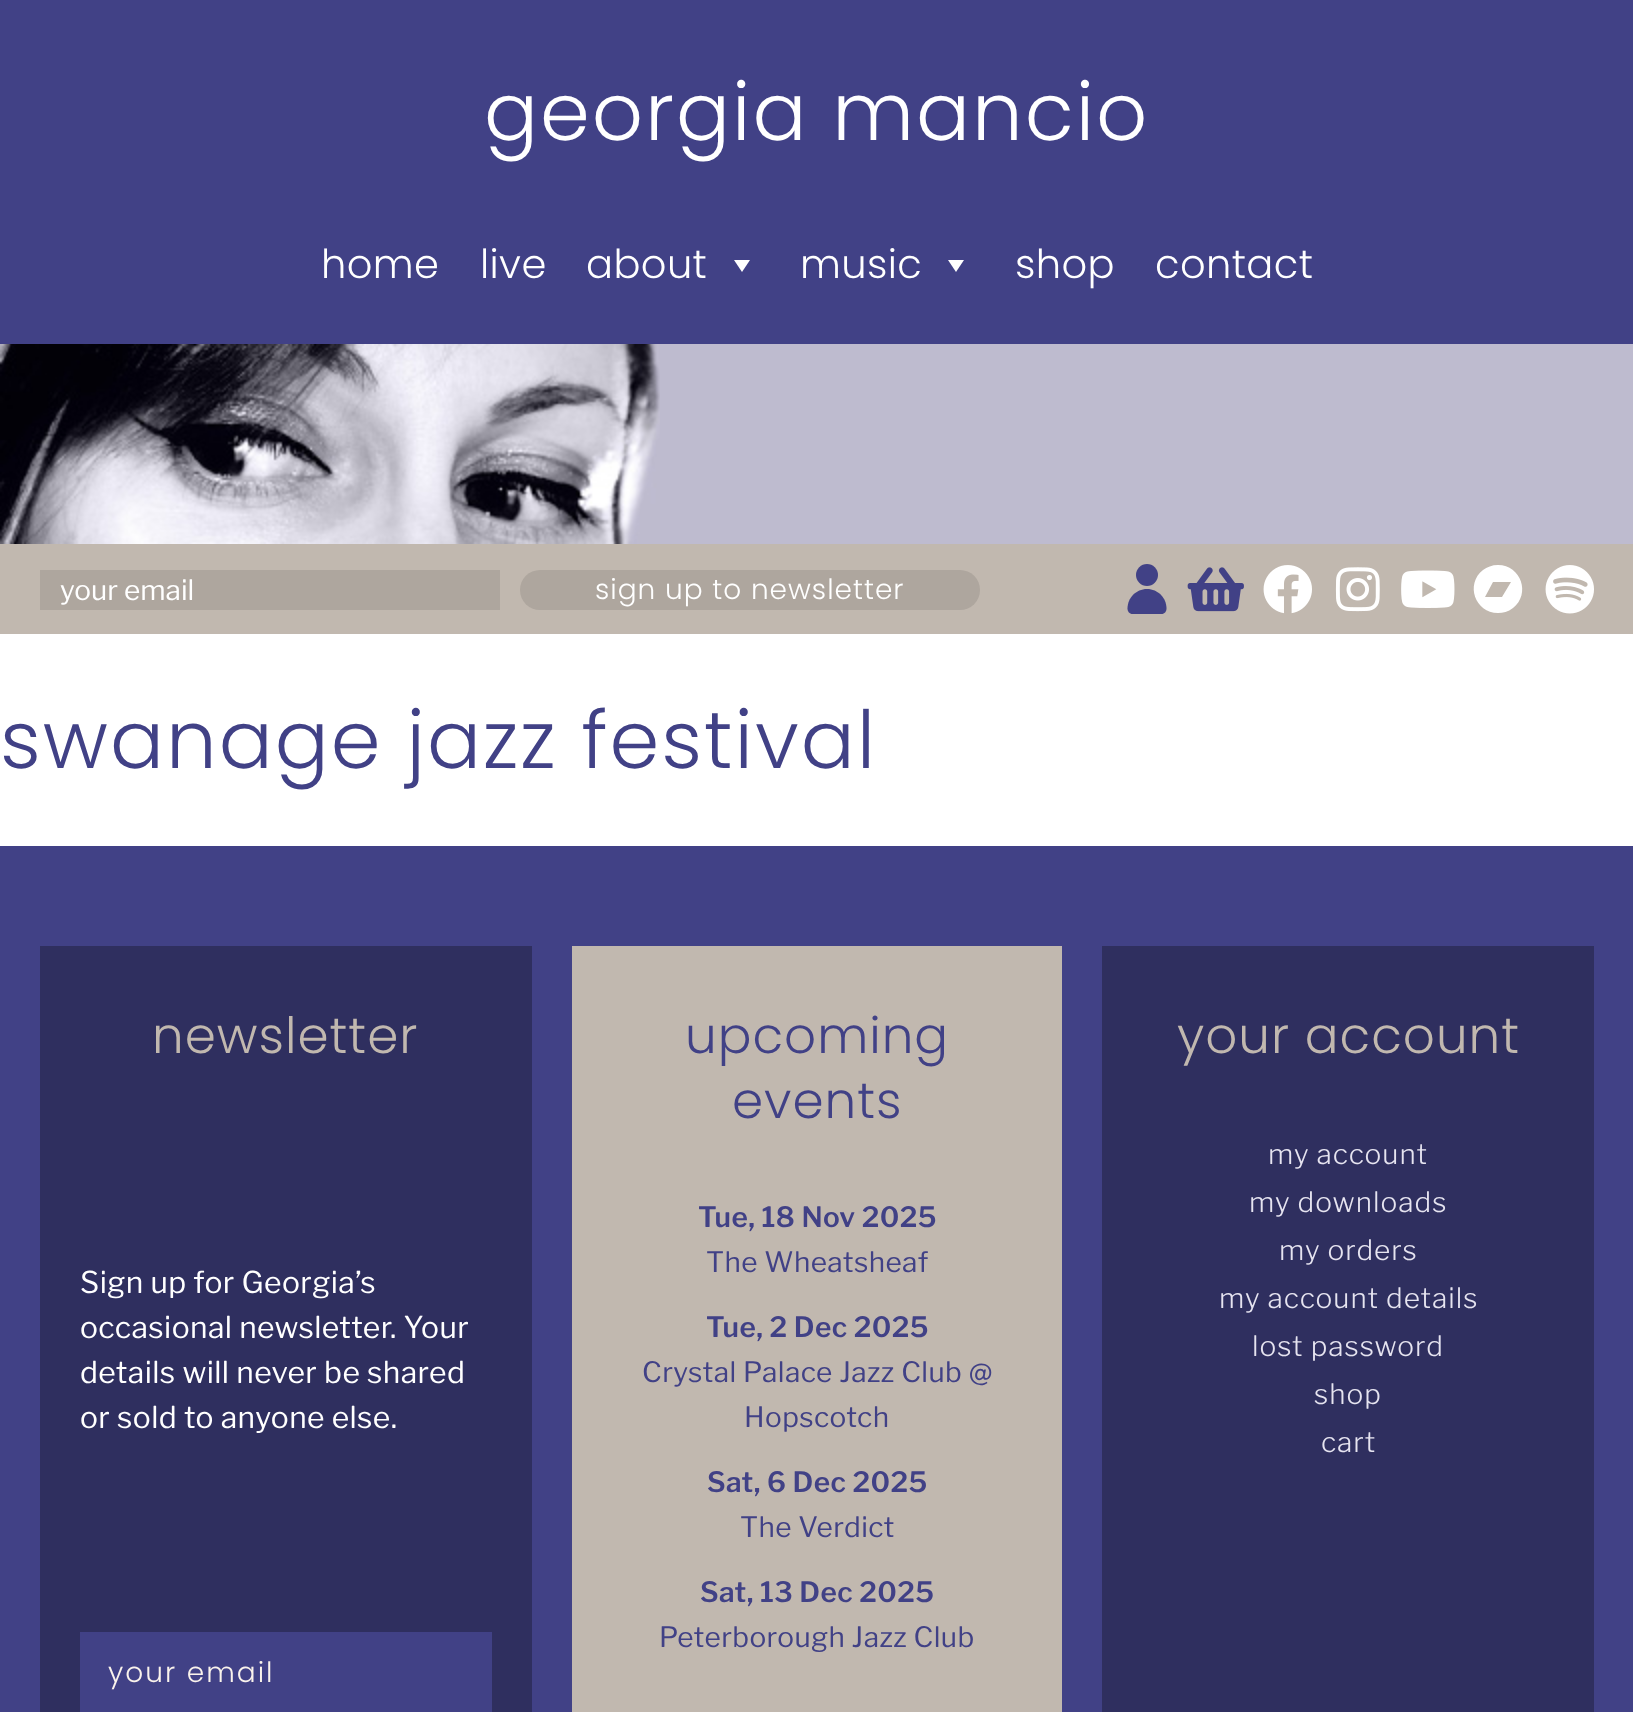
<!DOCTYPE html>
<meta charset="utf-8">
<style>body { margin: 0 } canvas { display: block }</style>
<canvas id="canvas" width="1633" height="1712"></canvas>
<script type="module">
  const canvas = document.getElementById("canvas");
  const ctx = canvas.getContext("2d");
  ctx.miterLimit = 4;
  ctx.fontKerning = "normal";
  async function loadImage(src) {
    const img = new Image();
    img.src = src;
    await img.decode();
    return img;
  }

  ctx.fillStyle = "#ffffff";
  ctx.fillRect(0, 0, 1633, 1712);
  ctx.fillStyle = "#414186";
  ctx.fillRect(0, 0, 1633, 344);
  ctx.letterSpacing = "2px";
  ctx.font = "300 80px Poppins";
  ctx.fillStyle = "#ffffff";
  ctx.fillText("georgia mancio", 484, 140);
  ctx.letterSpacing = "0.4px";
  ctx.font = "300 40px Poppins";
  ctx.fillText("home", 321, 278);
  ctx.fillText("live", 480, 278);
  ctx.fillText("about", 586, 278);
  ctx.beginPath();
  ctx.moveTo(750, 260);
  ctx.lineTo(742, 272);
  ctx.lineTo(734, 260);
  ctx.closePath();
  ctx.fill();
  ctx.fillText("music", 800, 278);
  ctx.beginPath();
  ctx.moveTo(964, 260);
  ctx.lineTo(956, 272);
  ctx.lineTo(948, 260);
  ctx.closePath();
  ctx.fill();
  ctx.fillText("shop", 1015, 278);
  ctx.fillText("contact", 1155, 278);
  ctx.fillStyle = "#bebbcf";
  ctx.fillRect(660, 344, 973, 200);
  ctx.drawImage(await loadImage("img1.png"), 0, 344, 660, 200);
  ctx.fillStyle = "#c1b8af";
  ctx.fillRect(0, 544, 1633, 90);
  ctx.fillStyle = "#aea69e";
  ctx.fillRect(40, 570, 460, 40);
  ctx.letterSpacing = "0px";
  ctx.font = "28px Libre Franklin";
  ctx.fillStyle = "#ffffff";
  ctx.fillText("your email", 60, 600);
  ctx.fillStyle = "#aea69e";
  ctx.beginPath();
  ctx.roundRect(520, 570, 460, 40, 20);
  ctx.fill();
  ctx.letterSpacing = "1px";
  ctx.font = "300 28px Poppins";
  ctx.fillStyle = "#ffffff";
  ctx.fillText("sign up to newsletter", 595, 599);
  ctx.fillStyle = "#414186";
  ctx.beginPath();
  ctx.arc(1147, 575, 11, 0, Math.PI * 2);
  ctx.fill();
  ctx.beginPath();
  ctx.moveTo(1147, 589);
  ctx.bezierCurveTo(1136, 589, 1127.5, 598, 1127.5, 608.5);
  ctx.bezierCurveTo(1127.5, 611.5, 1129.5, 614, 1132.5, 614);
  ctx.lineTo(1161.5, 614);
  ctx.bezierCurveTo(1164.5, 614, 1166.5, 611.5, 1166.5, 608.5);
  ctx.bezierCurveTo(1166.5, 598, 1158, 589, 1147, 589);
  ctx.closePath();
  ctx.fill();
  ctx.drawImage(await loadImage("img2.png"), 1187, 567, 57, 45);
  ctx.drawImage(await loadImage("img3.png"), 1263, 565, 49, 49);
  ctx.drawImage(await loadImage("img4.png"), 1335, 567, 45, 45);
  ctx.drawImage(await loadImage("img5.png"), 1401, 570, 54, 38);
  ctx.fillStyle = "#ffffff";
  ctx.beginPath();
  ctx.moveTo(1498, 565);
  ctx.bezierCurveTo(1521, 565, 1531, 594, 1513, 608);
  ctx.bezierCurveTo(1508, 612, 1503, 613, 1498, 613);
  ctx.bezierCurveTo(1475, 613, 1465, 584, 1483, 570);
  ctx.bezierCurveTo(1487, 567, 1492, 565, 1498, 565);
  ctx.closePath();
  ctx.moveTo(1502, 597);
  ctx.lineTo(1511, 582);
  ctx.lineTo(1493, 582);
  ctx.lineTo(1485, 597);
  ctx.closePath();
  ctx.fill();
  ctx.drawImage(await loadImage("img6.png"), 1545, 565, 49, 49);
  ctx.letterSpacing = "2px";
  ctx.font = "300 80px Poppins";
  ctx.fillStyle = "#414186";
  ctx.fillText("swanage jazz festival", 0, 768);
  ctx.fillRect(0, 846, 1633, 866);
  ctx.fillStyle = "#2f2f5f";
  ctx.fillRect(40, 946, 492, 766);
  ctx.letterSpacing = "1px";
  ctx.font = "300 50px Poppins";
  ctx.fillStyle = "#c1b8af";
  ctx.fillText("newsletter", 152, 1053);
  ctx.letterSpacing = "0.4px";
  ctx.font = "30px Libre Franklin";
  ctx.fillStyle = "#ffffff";
  ctx.fillText("Sign up for Georgia’s", 80, 1293);
  ctx.fillText("occasional newsletter. Your", 80, 1338);
  ctx.fillText("details will never be shared", 80, 1383);
  ctx.fillText("or sold to anyone else.", 80, 1428);
  ctx.fillStyle = "#414186";
  ctx.fillRect(80, 1632, 412, 80);
  ctx.letterSpacing = "2px";
  ctx.font = "300 28px Poppins";
  ctx.fillStyle = "#faf3ec";
  ctx.fillText("your email", 108, 1682);
  ctx.fillStyle = "#c1b8af";
  ctx.fillRect(572, 946, 490, 766);
  ctx.letterSpacing = "1px";
  ctx.font = "300 50px Poppins";
  ctx.fillStyle = "#414186";
  ctx.fillText("upcoming", 685, 1053);
  ctx.fillText("events", 732, 1118);
  ctx.letterSpacing = "0.4px";
  ctx.font = "600 28px Libre Franklin";
  ctx.fillText("Tue, 18 Nov 2025", 698, 1227);
  ctx.font = "28px Libre Franklin";
  ctx.fillText("The Wheatsheaf", 706, 1272);
  ctx.font = "600 28px Libre Franklin";
  ctx.fillText("Tue, 2 Dec 2025", 706, 1337);
  ctx.font = "28px Libre Franklin";
  ctx.fillText("Crystal Palace Jazz Club @", 642, 1382);
  ctx.fillText("Hopscotch", 744, 1427);
  ctx.font = "600 28px Libre Franklin";
  ctx.fillText("Sat, 6 Dec 2025", 707, 1492);
  ctx.font = "28px Libre Franklin";
  ctx.fillText("The Verdict", 740, 1537);
  ctx.font = "600 28px Libre Franklin";
  ctx.fillText("Sat, 13 Dec 2025", 700, 1602);
  ctx.font = "28px Libre Franklin";
  ctx.fillText("Peterborough Jazz Club", 659, 1647);
  ctx.fillStyle = "#2f2f5f";
  ctx.fillRect(1102, 946, 492, 766);
  ctx.letterSpacing = "1px";
  ctx.font = "300 50px Poppins";
  ctx.fillStyle = "#c1b8af";
  ctx.fillText("your account", 1177, 1053);
  ctx.font = "300 28px Libre Franklin";
  ctx.fillStyle = "#e6e4f0";
  ctx.fillText("my account", 1268, 1164);
  ctx.fillText("my downloads", 1249, 1212);
  ctx.fillText("my orders", 1279, 1260);
  ctx.fillText("my account details", 1219, 1308);
  ctx.fillText("lost password", 1252, 1356);
  ctx.fillText("shop", 1314, 1404);
  ctx.fillText("cart", 1321, 1452);
</script>
